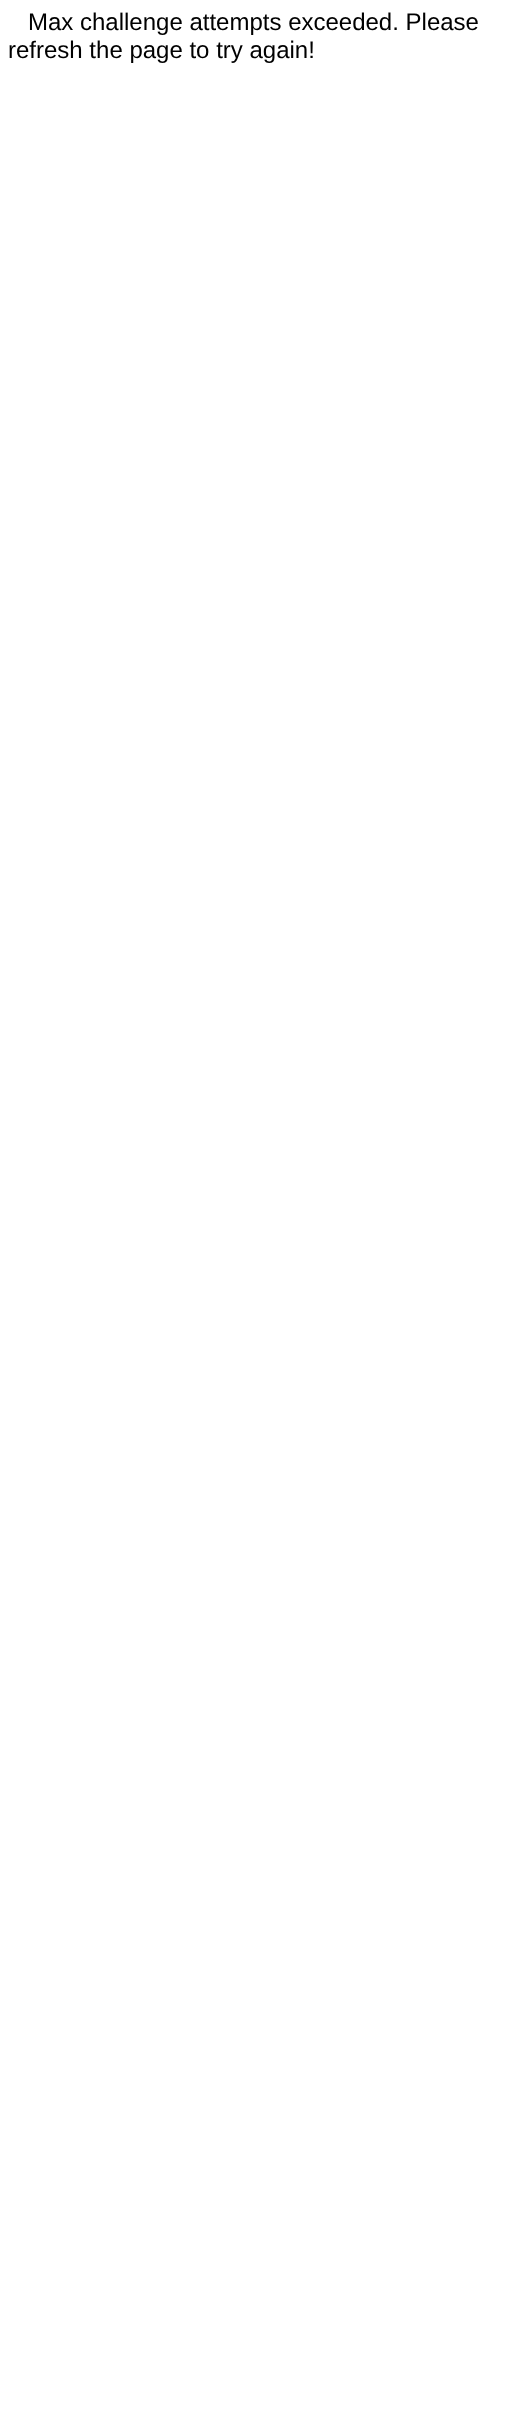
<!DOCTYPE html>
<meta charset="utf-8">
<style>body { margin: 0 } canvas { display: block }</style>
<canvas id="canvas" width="531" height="2425"></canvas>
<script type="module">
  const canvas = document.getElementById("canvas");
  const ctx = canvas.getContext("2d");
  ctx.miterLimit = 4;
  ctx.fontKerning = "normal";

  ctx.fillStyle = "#ffffff";
  ctx.fillRect(0, 0, 531, 2425);
  ctx.font = "24px Liberation Sans";
  ctx.fillStyle = "#000000";
  ctx.fillText("Max challenge attempts exceeded. Please", 28, 30);
  ctx.fillText("refresh the page to try again!", 8, 58);
</script>
